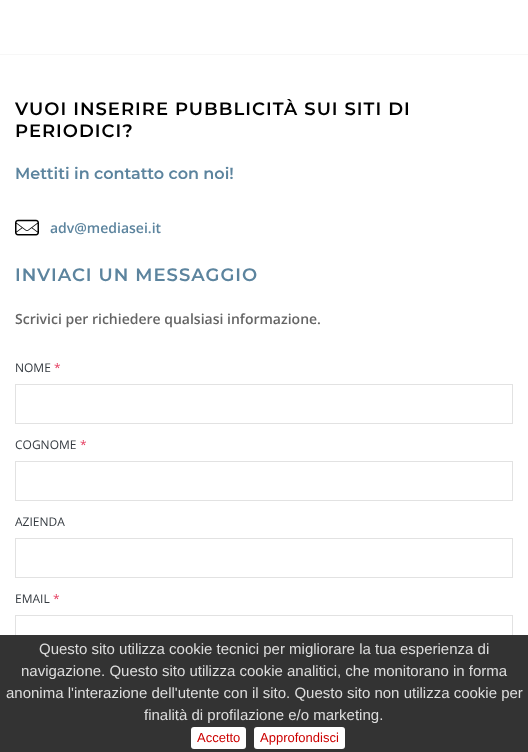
<!DOCTYPE html>
<meta charset="utf-8">
<style>body { margin: 0 } canvas { display: block }</style>
<canvas id="canvas" width="528" height="752"></canvas>
<script type="module">
  const canvas = document.getElementById("canvas");
  const ctx = canvas.getContext("2d");
  ctx.miterLimit = 4;
  ctx.fontKerning = "normal";
  async function loadImage(src) {
    const img = new Image();
    img.src = src;
    await img.decode();
    return img;
  }

  ctx.fillStyle = "#ffffff";
  ctx.fillRect(0, 0, 528, 752);
  ctx.fillStyle = "#f7f7f7";
  ctx.fillRect(0, 54, 528, 1);
  ctx.letterSpacing = "1px";
  ctx.font = "100 18px Montserrat";
  ctx.fillStyle = "#000000";
  ctx.fillText("VUOI INSERIRE PUBBLICITÀ SUI SITI DI", 15, 115);
  ctx.fillText("PERIODICI?", 15, 137);
  ctx.letterSpacing = "0px";
  ctx.font = "100 16px Montserrat";
  ctx.fillStyle = "#5c849e";
  ctx.fillText("Mettiti in contatto con noi!", 15, 179);
  ctx.drawImage(await loadImage("img1.png"), 15, 219, 24, 17);
  ctx.font = "600 14px Open Sans";
  ctx.fillText("adv@mediasei.it", 50, 233);
  ctx.letterSpacing = "1px";
  ctx.font = "100 18px Montserrat";
  ctx.fillText("INVIACI UN MESSAGGIO", 15, 281);
  ctx.letterSpacing = "0px";
  ctx.font = "600 14px Open Sans";
  ctx.fillStyle = "#656565";
  ctx.fillText("Scrivici per richiedere qualsiasi informazione.", 15, 324);
  ctx.font = "12px Open Sans";
  ctx.fillStyle = "#343a40";
  ctx.fillText("NOME", 15, 372);
  ctx.fillStyle = "#e53d60";
  ctx.fillText("*", 54, 372);
  ctx.strokeStyle = "#e2e2e2";
  ctx.strokeRect(15.5, 384.5, 497, 39);
  ctx.fillStyle = "#343a40";
  ctx.fillText("COGNOME", 15, 449);
  ctx.fillStyle = "#e53d60";
  ctx.fillText("*", 80, 449);
  ctx.strokeRect(15.5, 461.5, 497, 39);
  ctx.fillStyle = "#343a40";
  ctx.fillText("AZIENDA", 15, 526);
  ctx.strokeRect(15.5, 538.5, 497, 39);
  ctx.fillText("EMAIL", 15, 603);
  ctx.fillStyle = "#e53d60";
  ctx.fillText("*", 53, 603);
  ctx.strokeRect(15.5, 615.5, 497, 39);
  ctx.fillStyle = "#333333";
  ctx.fillRect(0, 635, 528, 117);
  ctx.font = "15px Liberation Sans";
  ctx.fillStyle = "#dddddd";
  ctx.fillText("Questo sito utilizza cookie tecnici per migliorare la tua esperienza di", 39, 654);
  ctx.fillText("navigazione. Questo sito utilizza cookie analitici, che monitorano in forma", 21, 676);
  ctx.fillText("anonima l'interazione dell'utente con il sito. Questo sito non utilizza cookie per", 6, 698);
  ctx.fillText("finalità di profilazione e/o marketing.", 144, 720);
  ctx.fillStyle = "#ffffff";
  ctx.beginPath();
  ctx.roundRect(191, 727, 55, 22, 3);
  ctx.fill();
  ctx.font = "13px Liberation Sans";
  ctx.fillStyle = "#cc0000";
  ctx.fillText("Accetto", 197, 742);
  ctx.fillStyle = "#ffffff";
  ctx.beginPath();
  ctx.roundRect(254, 727, 91, 22, 3);
  ctx.fill();
  ctx.fillStyle = "#cc0000";
  ctx.fillText("Approfondisci", 260, 742);
</script>
